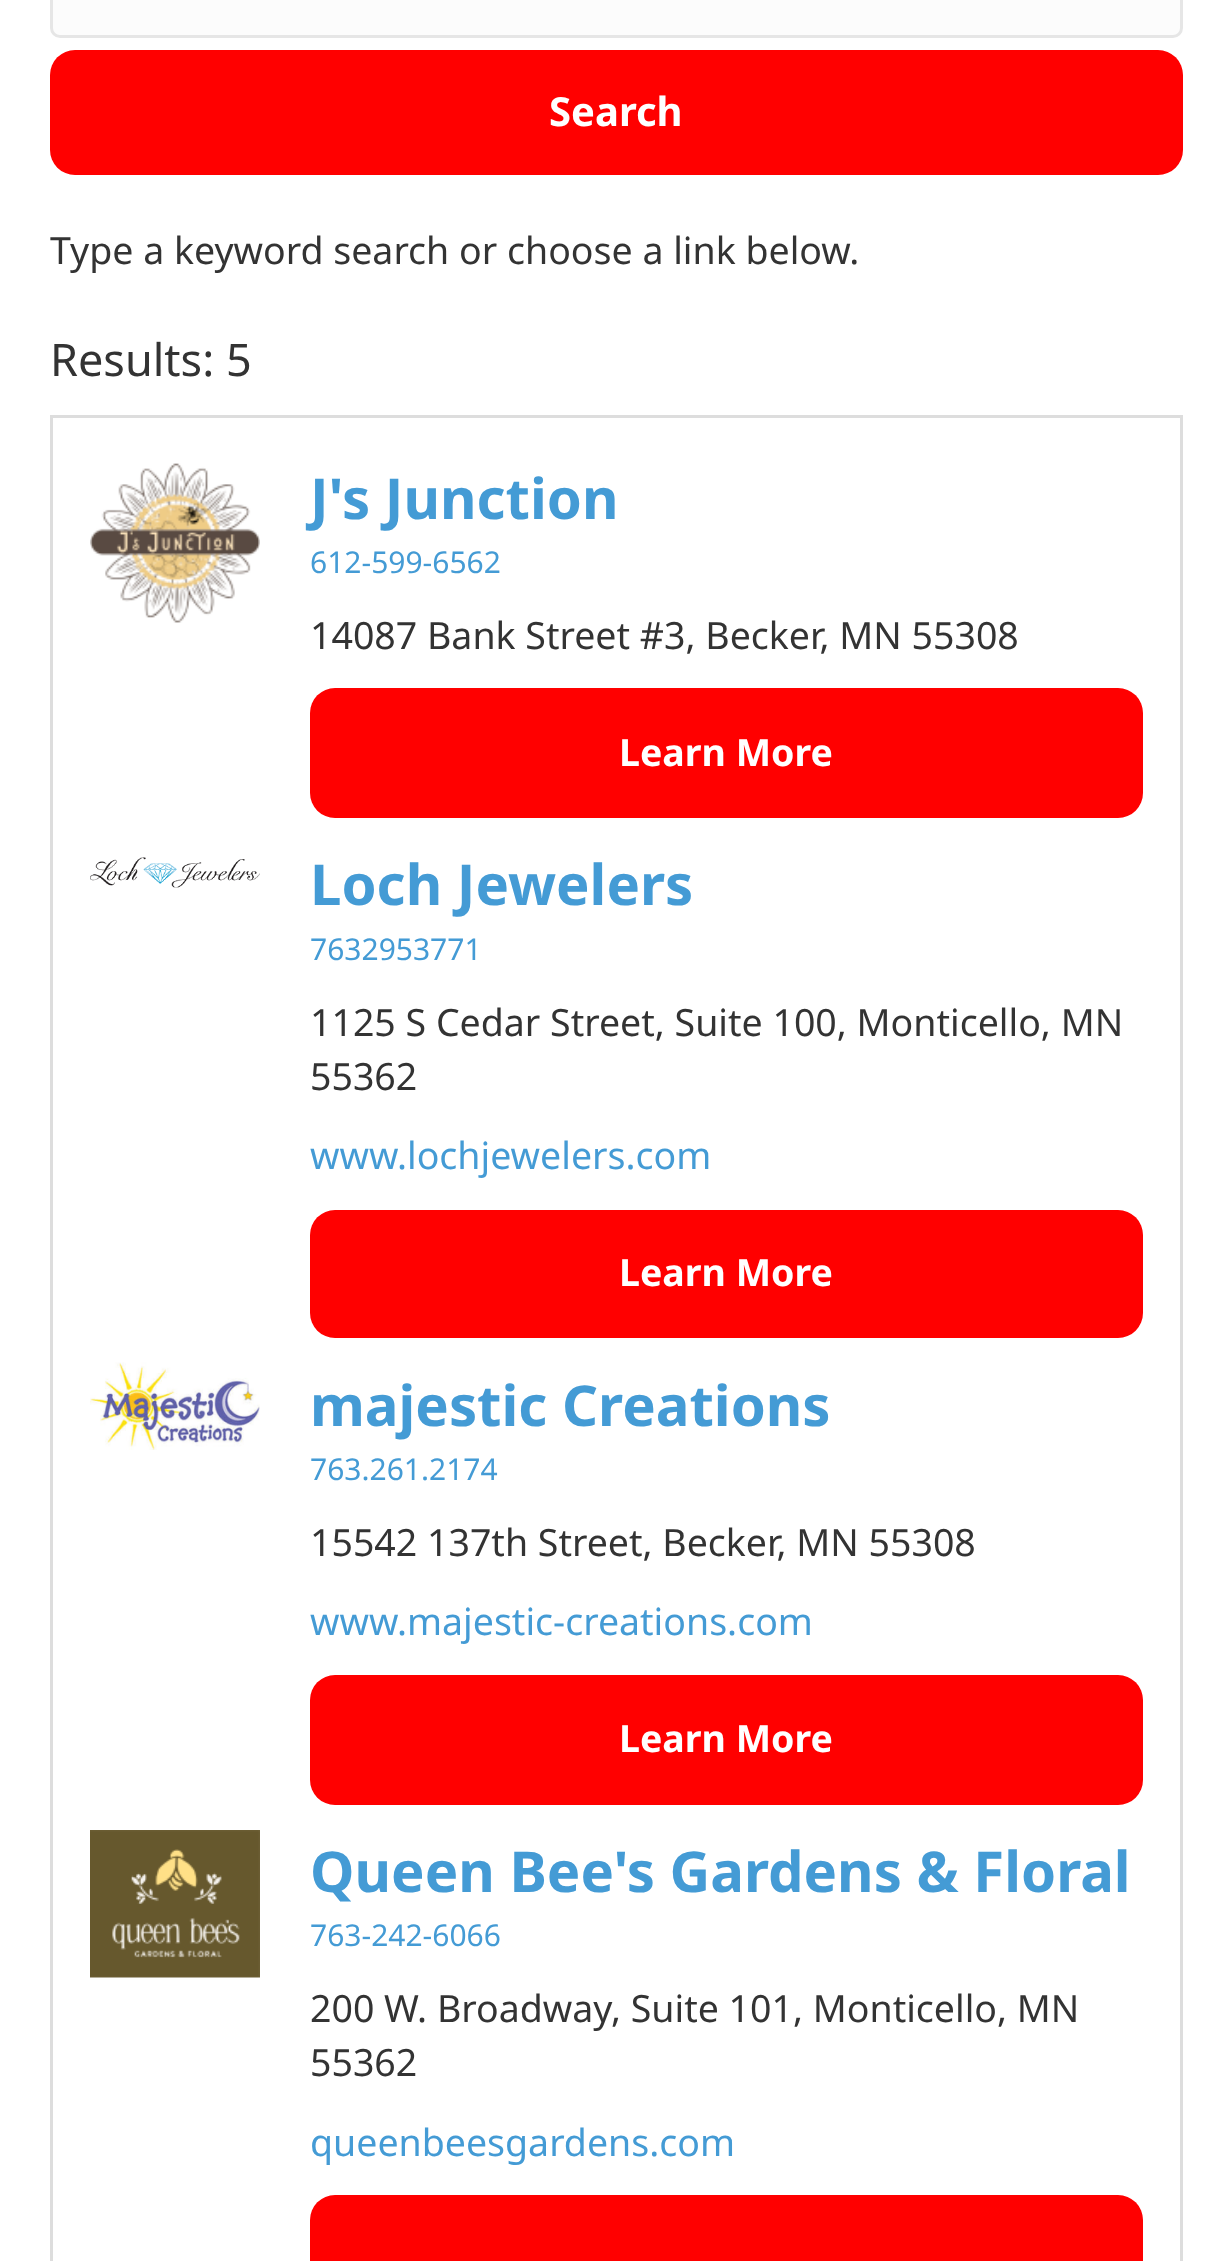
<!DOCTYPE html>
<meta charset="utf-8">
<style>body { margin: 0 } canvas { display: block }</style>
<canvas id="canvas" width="1232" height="2261"></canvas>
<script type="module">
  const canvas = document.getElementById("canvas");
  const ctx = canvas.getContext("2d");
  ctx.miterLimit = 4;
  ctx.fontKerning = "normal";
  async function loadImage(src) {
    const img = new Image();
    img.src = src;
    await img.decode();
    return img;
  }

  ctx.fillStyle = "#ffffff";
  ctx.fillRect(0, 0, 1232, 2261);
  ctx.fillStyle = "#fcfcfc";
  ctx.beginPath();
  ctx.roundRect(51.5, -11.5, 1130, 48, 8.5);
  ctx.fill();
  ctx.strokeStyle = "#e6e6e6";
  ctx.lineWidth = 3;
  ctx.stroke();
  ctx.fillStyle = "#ff0000";
  ctx.beginPath();
  ctx.roundRect(50, 50, 1133, 125, 25);
  ctx.fill();
  ctx.font = "bold 40px Noto Sans";
  ctx.fillStyle = "#ffffff";
  ctx.fillText("Search", 549, 126);
  ctx.font = "37.5px Noto Sans";
  ctx.fillStyle = "#333333";
  ctx.fillText("Type a keyword search or choose a link below.", 50, 264);
  ctx.font = "45px Noto Sans";
  ctx.fillText("Results: 5", 50, 376);
  ctx.strokeStyle = "#dddddd";
  ctx.strokeRect(51.5, 416.5, 1130, 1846);
  ctx.drawImage(await loadImage("img1.png"), 90, 463, 170, 160);
  ctx.font = "bold 56.25px Noto Sans";
  ctx.fillStyle = "#449bd5";
  ctx.fillText("J's Junction", 310, 519);
  ctx.font = "30px Noto Sans";
  ctx.fillText("612-599-6562", 310, 573);
  ctx.font = "37.5px Noto Sans";
  ctx.fillStyle = "#333333";
  ctx.fillText("14087 Bank Street #3, Becker, MN 55308", 310, 649);
  ctx.fillStyle = "#ff0000";
  ctx.beginPath();
  ctx.roundRect(310, 688, 833, 130, 25);
  ctx.fill();
  ctx.font = "bold 37.5px Noto Sans";
  ctx.fillStyle = "#ffffff";
  ctx.fillText("Learn More", 619, 766);
  ctx.drawImage(await loadImage("img2.png"), 90, 857, 170, 31);
  ctx.font = "bold 56.25px Noto Sans";
  ctx.fillStyle = "#449bd5";
  ctx.fillText("Loch Jewelers", 310, 905);
  ctx.font = "30px Noto Sans";
  ctx.fillText("7632953771", 310, 960);
  ctx.font = "37.5px Noto Sans";
  ctx.fillStyle = "#333333";
  ctx.fillText("1125 S Cedar Street, Suite 100, Monticello, MN", 310, 1036);
  ctx.fillText("55362", 310, 1090);
  ctx.fillStyle = "#449bd5";
  ctx.fillText("www.lochjewelers.com", 310, 1169);
  ctx.fillStyle = "#ff0000";
  ctx.beginPath();
  ctx.roundRect(310, 1210, 833, 128, 25);
  ctx.fill();
  ctx.font = "bold 37.5px Noto Sans";
  ctx.fillStyle = "#ffffff";
  ctx.fillText("Learn More", 619, 1286);
  ctx.drawImage(await loadImage("img3.png"), 90, 1362, 170, 88);
  ctx.font = "bold 56.25px Noto Sans";
  ctx.fillStyle = "#449bd5";
  ctx.fillText("majestic Creations", 310, 1426);
  ctx.font = "30px Noto Sans";
  ctx.fillText("763.261.2174", 310, 1480);
  ctx.font = "37.5px Noto Sans";
  ctx.fillStyle = "#333333";
  ctx.fillText("15542 137th Street, Becker, MN 55308", 310, 1556);
  ctx.fillStyle = "#449bd5";
  ctx.fillText("www.majestic-creations.com", 310, 1635);
  ctx.fillStyle = "#ff0000";
  ctx.beginPath();
  ctx.roundRect(310, 1675, 833, 130, 25);
  ctx.fill();
  ctx.font = "bold 37.5px Noto Sans";
  ctx.fillStyle = "#ffffff";
  ctx.fillText("Learn More", 619, 1752);
  ctx.drawImage(await loadImage("img4.png"), 90, 1830, 170, 148);
  ctx.font = "bold 56.25px Noto Sans";
  ctx.fillStyle = "#449bd5";
  ctx.fillText("Queen Bee's Gardens & Floral", 310, 1892);
  ctx.font = "30px Noto Sans";
  ctx.fillText("763-242-6066", 310, 1946);
  ctx.font = "37.5px Noto Sans";
  ctx.fillStyle = "#333333";
  ctx.fillText("200 W. Broadway, Suite 101, Monticello, MN", 310, 2022);
  ctx.fillText("55362", 310, 2076);
  ctx.fillStyle = "#449bd5";
  ctx.fillText("queenbeesgardens.com", 310, 2156);
  ctx.fillStyle = "#ff0000";
  ctx.beginPath();
  ctx.roundRect(310, 2195, 833, 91, 25);
  ctx.fill();
</script>
